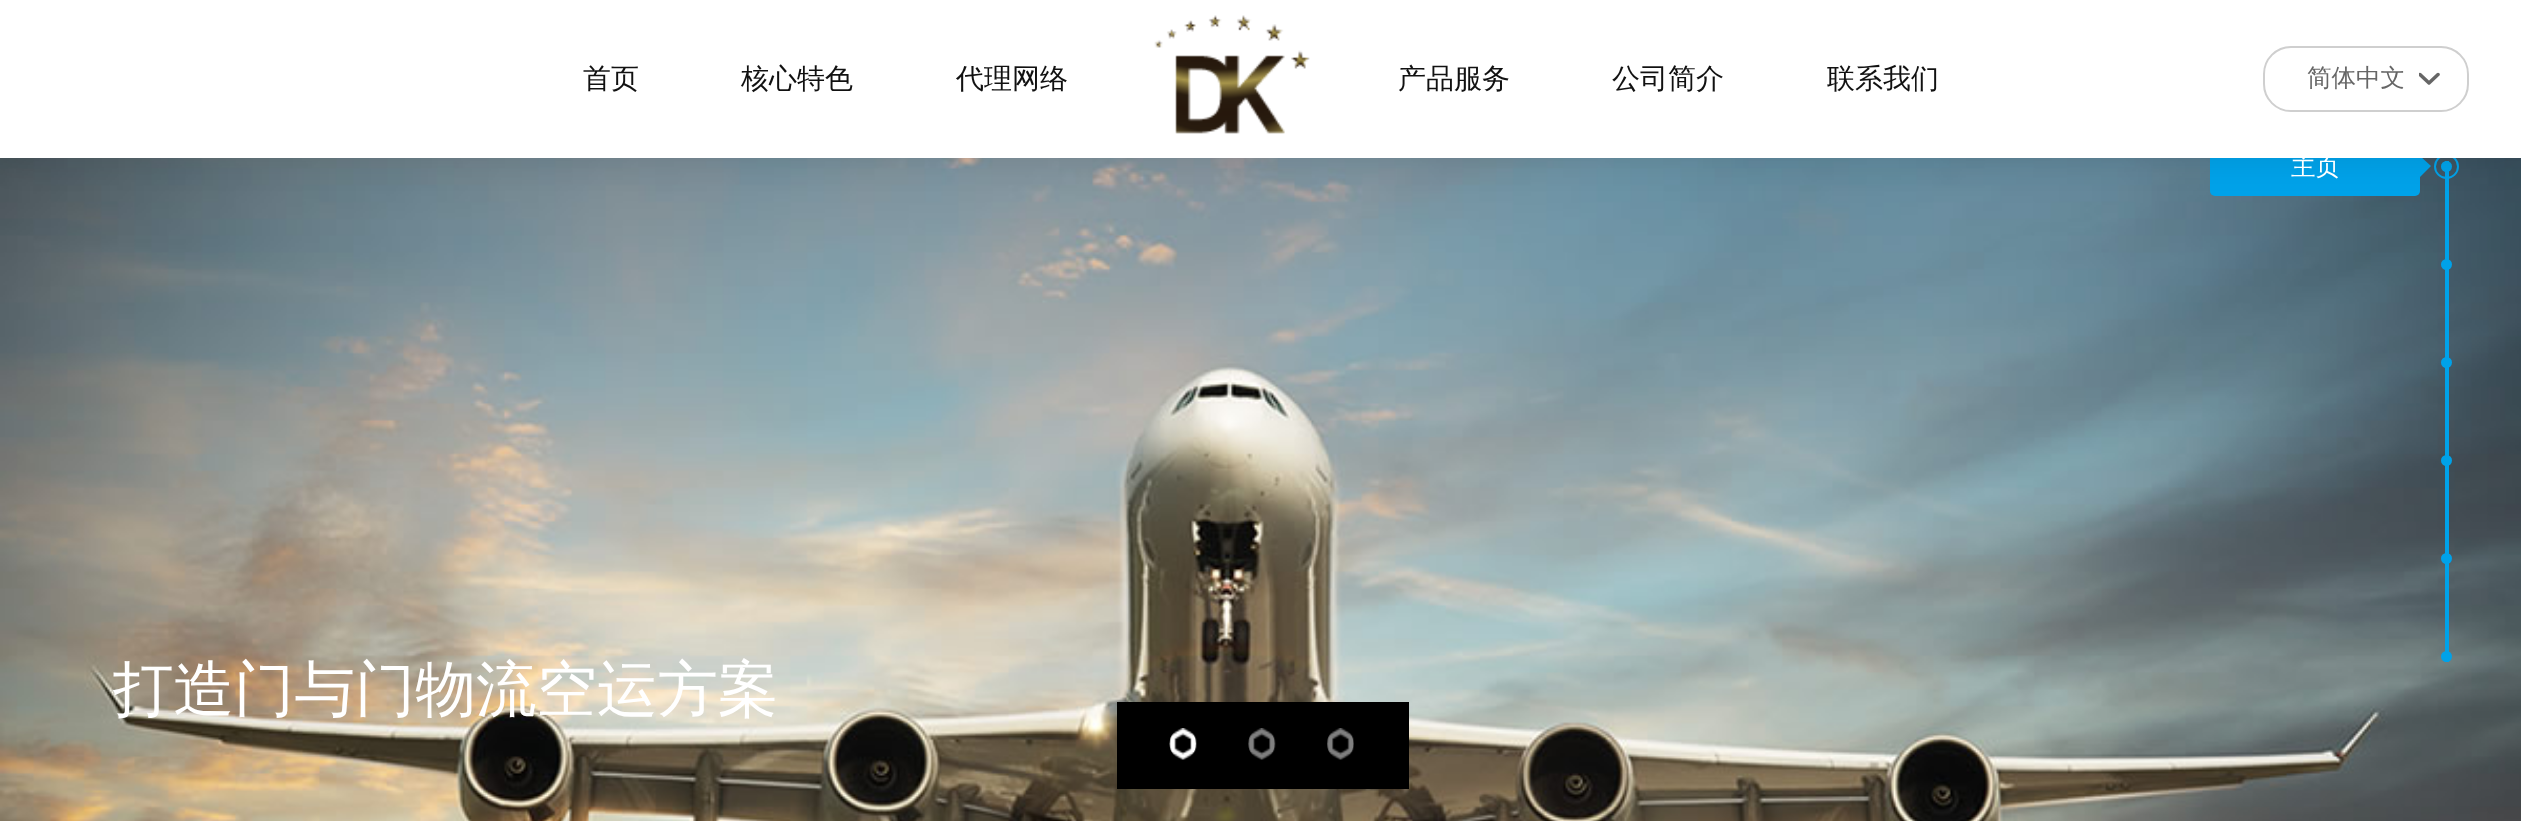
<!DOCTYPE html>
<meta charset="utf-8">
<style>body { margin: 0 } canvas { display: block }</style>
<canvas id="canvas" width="2521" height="821"></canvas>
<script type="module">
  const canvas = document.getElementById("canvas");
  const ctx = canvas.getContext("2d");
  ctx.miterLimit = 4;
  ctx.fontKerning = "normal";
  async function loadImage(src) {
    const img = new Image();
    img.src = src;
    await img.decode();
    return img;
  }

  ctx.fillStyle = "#ffffff";
  ctx.fillRect(0, 0, 2521, 821);
  ctx.drawImage(await loadImage("img2.png"), 0, 158, 2521, 663);
  ctx.fillStyle = "#00a2e9";
  ctx.beginPath();
  ctx.roundRect(2210, 137, 210, 59, 5);
  ctx.fill();
  ctx.beginPath();
  ctx.moveTo(2420, 177);
  ctx.lineTo(2420, 156);
  ctx.lineTo(2431, 166);
  ctx.closePath();
  ctx.fill();
  ctx.fillRect(2445, 161, 4, 501);
  ctx.beginPath();
  ctx.arc(2446.5, 166.5, 5.5, 0, Math.PI * 2);
  ctx.fill();
  ctx.beginPath();
  ctx.arc(2446.5, 166.5, 11.5, 0, Math.PI * 2);
  ctx.strokeStyle = "#00a2e9";
  ctx.lineWidth = 2;
  ctx.stroke();
  ctx.fillStyle = "rgba(0, 0, 0, 0.1)";
  ctx.filter = "blur(17.5px)";
  ctx.beginPath();
  ctx.rect(0, 0, 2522, 158);
  ctx.fill();
  ctx.filter = "none";
  ctx.fillStyle = "#ffffff";
  ctx.fillRect(0, 0, 2521, 158);
  ctx.font = "500 28px WenQuanYi Zen Hei";
  ctx.fillStyle = "#111111";
  ctx.fillText("首页", 583, 88);
  ctx.fillText("核心特色", 741, 88);
  ctx.fillText("代理网络", 956, 88);
  ctx.drawImage(await loadImage("img1.png"), 1154, 15, 156, 119);
  ctx.fillText("产品服务", 1398, 88);
  ctx.fillText("公司简介", 1612, 88);
  ctx.fillText("联系我们", 1827, 88);
  ctx.beginPath();
  ctx.roundRect(2264, 47, 204, 64, 27);
  ctx.strokeStyle = "#cfcfcf";
  ctx.stroke();
  ctx.font = "500 24.5px WenQuanYi Zen Hei";
  ctx.fillStyle = "#666666";
  ctx.fillText("简体中文", 2307, 86);
  ctx.save();
  ctx.beginPath();
  ctx.rect(2419, 72, 21, 14);
  ctx.clip();
  ctx.beginPath();
  ctx.moveTo(2438, 74.5);
  ctx.lineTo(2429, 83);
  ctx.lineTo(2420, 74.5);
  ctx.strokeStyle = "#666666";
  ctx.lineWidth = 3.5;
  ctx.lineCap = "round";
  ctx.lineJoin = "round";
  ctx.stroke();
  ctx.restore();
  ctx.fillStyle = "#ffffff";
  ctx.fillText("主页", 2291, 175);
  ctx.fillStyle = "#00a2e9";
  ctx.beginPath();
  ctx.arc(2446.5, 264.5, 5.5, 0, Math.PI * 2);
  ctx.fill();
  ctx.beginPath();
  ctx.arc(2446.5, 362.5, 5.5, 0, Math.PI * 2);
  ctx.fill();
  ctx.beginPath();
  ctx.arc(2446.5, 460.5, 5.5, 0, Math.PI * 2);
  ctx.fill();
  ctx.beginPath();
  ctx.arc(2446.5, 558.5, 5.5, 0, Math.PI * 2);
  ctx.fill();
  ctx.beginPath();
  ctx.arc(2446.5, 656.5, 5.5, 0, Math.PI * 2);
  ctx.fill();
  ctx.font = "500 60.5px WenQuanYi Zen Hei";
  ctx.fillStyle = "#ffffff";
  ctx.fillText("打造门与门物流空运方案", 113, 710);
  ctx.fillStyle = "#000000";
  ctx.fillRect(1117, 702, 292, 87);
  ctx.drawImage(await loadImage("img3.png"), 1169, 728, 28, 32);
  ctx.drawImage(await loadImage("img4.png"), 1248, 728, 28, 32);
  ctx.drawImage(await loadImage("img5.png"), 1327, 728, 27, 32);
</script>
